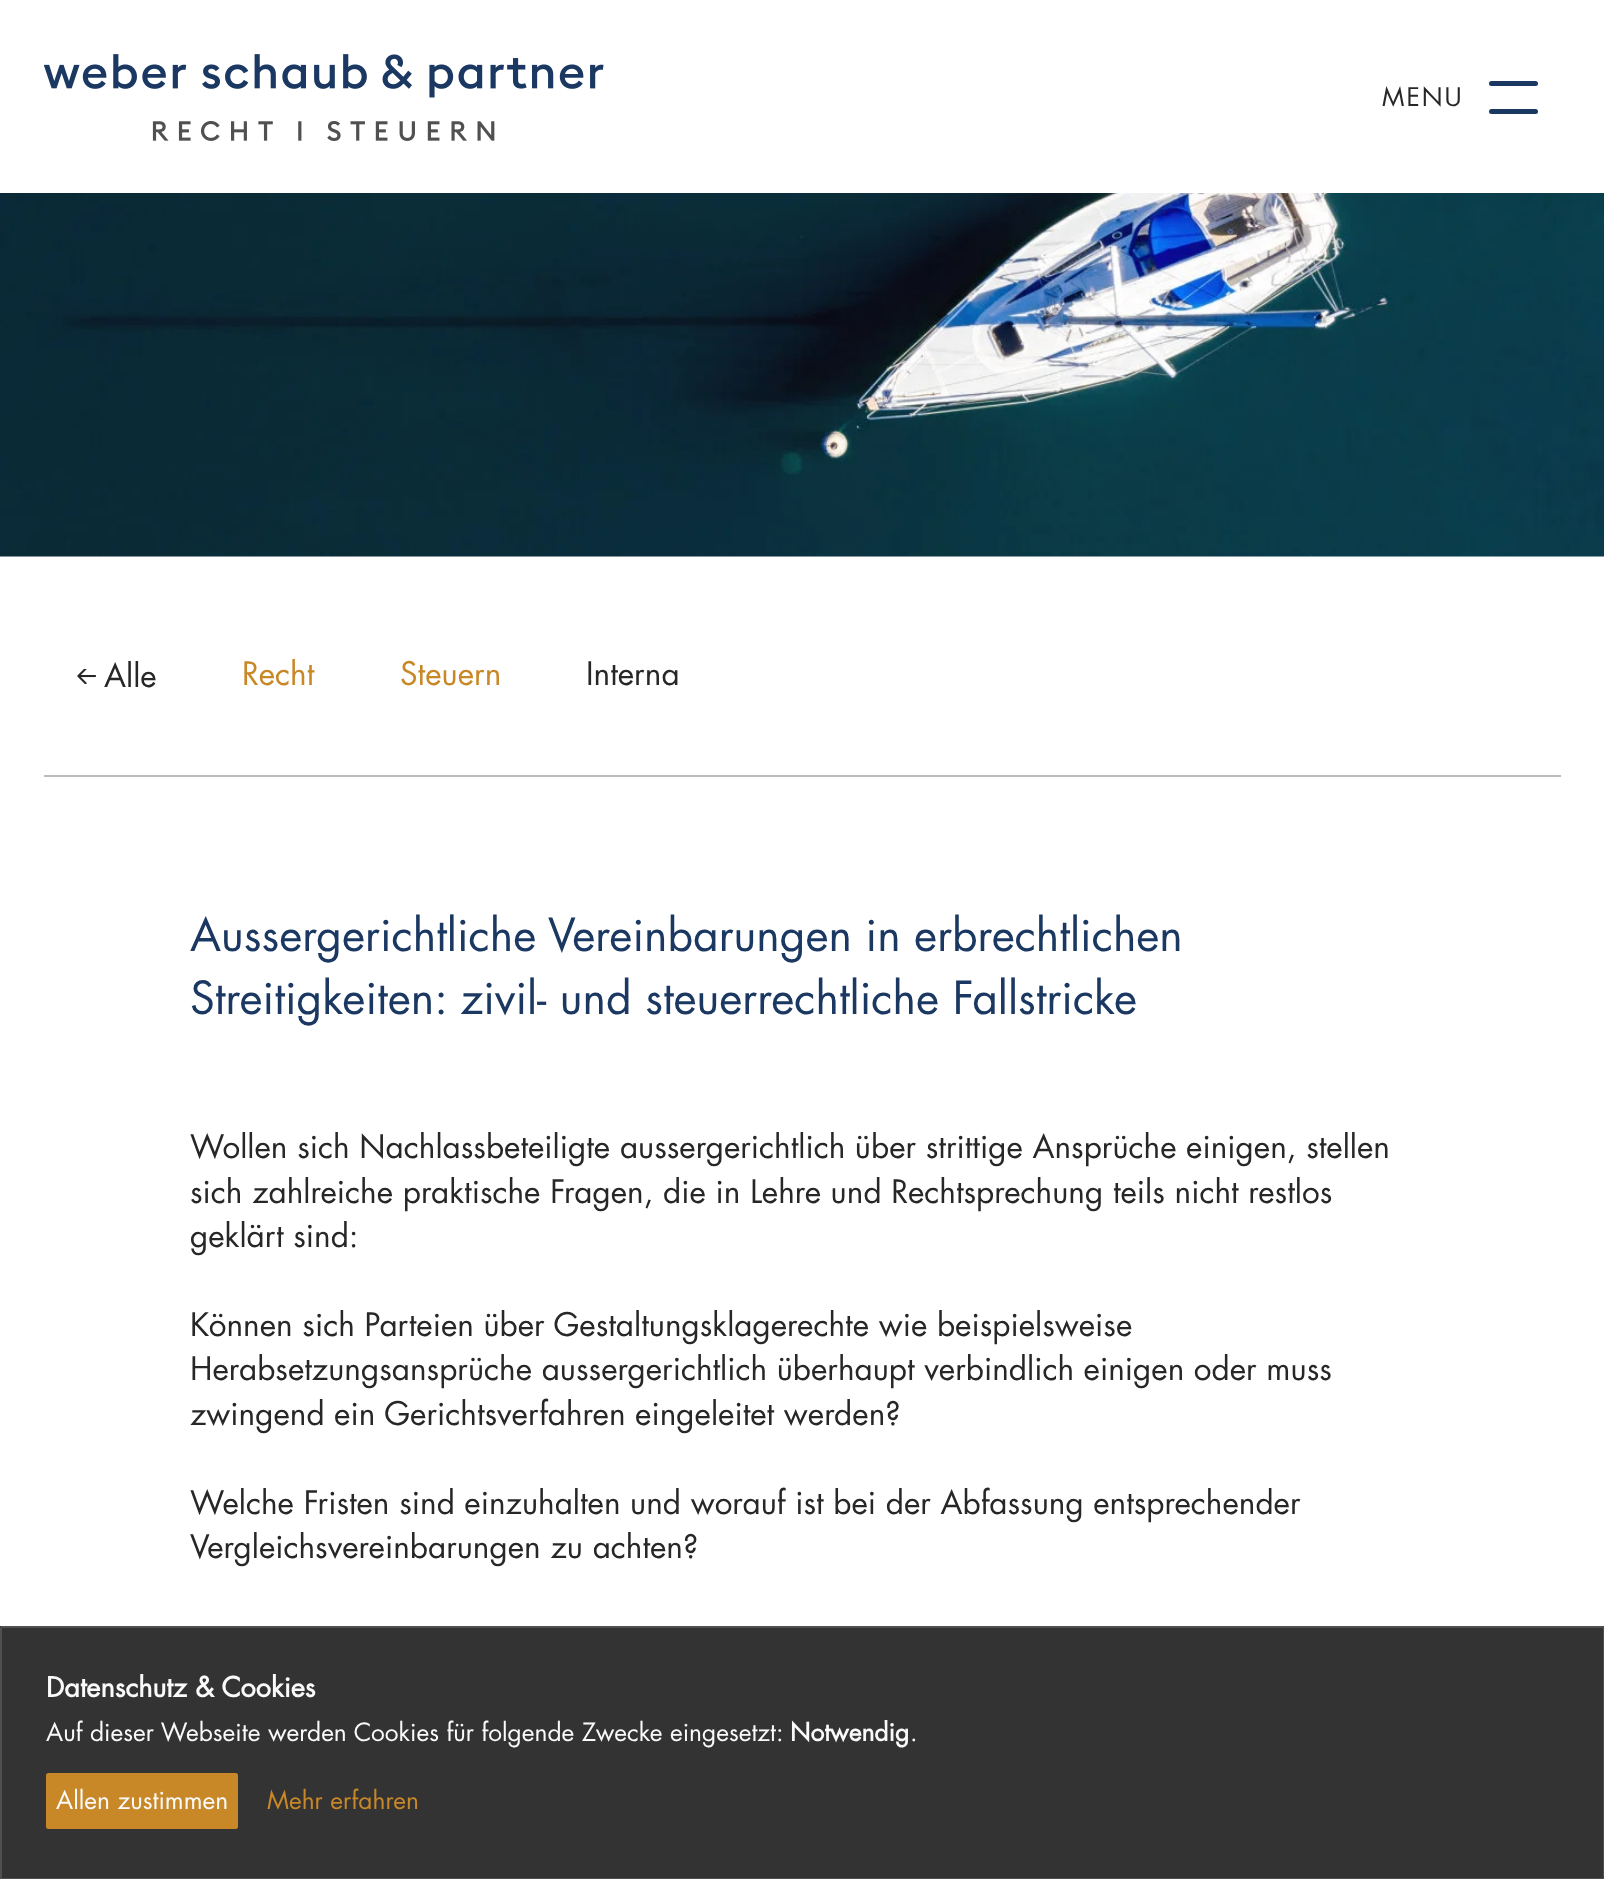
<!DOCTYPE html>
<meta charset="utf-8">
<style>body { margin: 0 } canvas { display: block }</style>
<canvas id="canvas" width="1604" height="1879"></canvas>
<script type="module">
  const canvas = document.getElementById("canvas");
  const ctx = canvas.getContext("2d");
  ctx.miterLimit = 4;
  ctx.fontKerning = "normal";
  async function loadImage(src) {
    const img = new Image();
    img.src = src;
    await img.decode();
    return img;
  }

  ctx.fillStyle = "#ffffff";
  ctx.fillRect(0, 0, 1604, 1879);
  ctx.drawImage(await loadImage("img1.png"), 44, 54, 560, 87);
  ctx.letterSpacing = "2px";
  ctx.font = "25px Futura";
  ctx.fillStyle = "#272727";
  ctx.fillText("MENU", 1382, 106);
  ctx.fillStyle = "#1b3862";
  ctx.beginPath();
  ctx.roundRect(1489, 81, 49, 5, 2.5);
  ctx.fill();
  ctx.beginPath();
  ctx.roundRect(1489, 109, 49, 5, 2.5);
  ctx.fill();
  ctx.drawImage(await loadImage("img2.png"), 0, 193, 1604, 364);
  ctx.fillStyle = "#bcbcbc";
  ctx.fillRect(44, 775, 1517, 2);
  ctx.drawImage(await loadImage("img3.png"), 77, 669, 19, 15);
  ctx.letterSpacing = "0px";
  ctx.font = "31.5px Futura";
  ctx.fillStyle = "#272727";
  ctx.fillText("Alle", 104, 687);
  ctx.fillStyle = "#c88827";
  ctx.fillText("Recht", 242, 685);
  ctx.fillText("Steuern", 400, 685);
  ctx.fillStyle = "#272727";
  ctx.fillText("Interna", 586, 685);
  ctx.font = "44.4px Futura";
  ctx.fillStyle = "#1b3862";
  ctx.fillText("Aussergerichtliche Vereinbarungen in erbrechtlichen", 190, 951);
  ctx.fillText("Streitigkeiten: zivil- und steuerrechtliche Fallstricke", 190, 1014);
  ctx.font = "31.5px Futura";
  ctx.fillStyle = "#272727";
  ctx.fillText("Wollen sich Nachlassbeteiligte aussergerichtlich über strittige Ansprüche einigen, stellen", 190, 1158);
  ctx.fillText("sich zahlreiche praktische Fragen, die in Lehre und Rechtsprechung teils nicht restlos", 190, 1203);
  ctx.fillText("geklärt sind:", 190, 1247);
  ctx.fillText("Können sich Parteien über Gestaltungsklagerechte wie beispielsweise", 190, 1336);
  ctx.fillText("Herabsetzungsansprüche aussergerichtlich überhaupt verbindlich einigen oder muss", 190, 1380);
  ctx.fillText("zwingend ein Gerichtsverfahren eingeleitet werden?", 190, 1425);
  ctx.fillText("Welche Fristen sind einzuhalten und worauf ist bei der Abfassung entsprechender", 190, 1514);
  ctx.fillText("Vergleichsvereinbarungen zu achten?", 190, 1558);
  ctx.fillStyle = "#333333";
  ctx.fillRect(0, 1626, 1604, 253);
  ctx.beginPath();
  ctx.roundRect(1, 1627, 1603, 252, 1.5);
  ctx.strokeStyle = "#505050";
  ctx.lineWidth = 2;
  ctx.stroke();
  ctx.font = "bold 27px Futura";
  ctx.fillStyle = "#fafafa";
  ctx.fillText("Datenschutz & Cookies", 46, 1697);
  ctx.font = "24.5px Futura";
  ctx.fillText("Auf dieser Webseite werden Cookies für folgende Zwecke eingesetzt:", 46, 1741);
  ctx.font = "bold 24.5px Futura";
  ctx.fillText("Notwendig", 790, 1741);
  ctx.font = "24.5px Futura";
  ctx.fillText(".", 910, 1741);
  ctx.fillStyle = "#c88827";
  ctx.beginPath();
  ctx.roundRect(46, 1773, 192, 56, 2.5);
  ctx.fill();
  ctx.fillStyle = "#fafafa";
  ctx.fillText("Allen zustimmen", 56, 1809);
  ctx.fillStyle = "#c88827";
  ctx.fillText("Mehr erfahren", 267, 1809);
</script>
